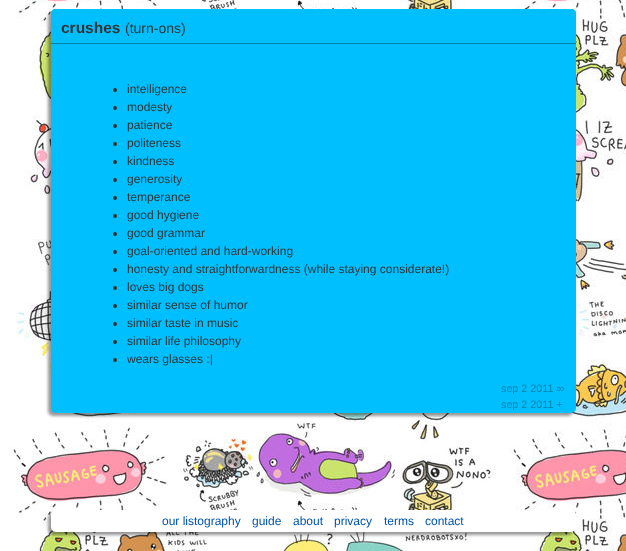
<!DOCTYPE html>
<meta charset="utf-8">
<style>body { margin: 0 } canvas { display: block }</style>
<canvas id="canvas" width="626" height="551"></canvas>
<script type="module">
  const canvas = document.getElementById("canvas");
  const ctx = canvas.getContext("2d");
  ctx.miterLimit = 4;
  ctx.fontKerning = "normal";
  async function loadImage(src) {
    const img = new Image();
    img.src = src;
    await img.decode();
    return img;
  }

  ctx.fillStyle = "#ffffff";
  ctx.fillRect(0, 0, 626, 551);
  ctx.drawImage(await loadImage("img1.png"), 8, 0, 618, 551);
  ctx.fillStyle = "rgba(0, 0, 0, 0.4)";
  ctx.filter = "blur(1.5px)";
  ctx.beginPath();
  ctx.roundRect(48, 12, 525, 404, 5);
  ctx.fill();
  ctx.filter = "none";
  ctx.fillStyle = "#00bfff";
  ctx.beginPath();
  ctx.roundRect(51, 9, 525, 404, 5);
  ctx.fill();
  ctx.beginPath();
  ctx.roundRect(51, 9, 525, 35, [5, 5, 0, 0]);
  ctx.fill();
  ctx.beginPath();
  ctx.moveTo(56, 9);
  ctx.bezierCurveTo(53, 9, 51, 11, 51, 14);
  ctx.bezierCurveTo(51, 12, 53, 10, 56, 10);
  ctx.lineTo(571, 10);
  ctx.bezierCurveTo(574, 10, 576, 12, 576, 14);
  ctx.bezierCurveTo(576, 11, 574, 9, 571, 9);
  ctx.closePath();
  ctx.fill();
  ctx.fillStyle = "#0082ad";
  ctx.fillRect(51, 43, 525, 1);
  ctx.font = "bold 15.5px Liberation Sans";
  ctx.fillStyle = "#333333";
  ctx.fillText("crushes", 61, 33);
  ctx.font = "14px Liberation Sans";
  ctx.fillText("(turn-ons)", 125, 33);
  ctx.beginPath();
  ctx.arc(115, 90, 2, 0, Math.PI * 2);
  ctx.fill();
  ctx.font = "12px Liberation Sans";
  ctx.fillText("intelligence", 127, 93);
  ctx.beginPath();
  ctx.arc(115, 108, 2, 0, Math.PI * 2);
  ctx.fill();
  ctx.fillText("modesty", 127, 111);
  ctx.beginPath();
  ctx.arc(115, 126, 2, 0, Math.PI * 2);
  ctx.fill();
  ctx.fillText("patience", 127, 129);
  ctx.beginPath();
  ctx.arc(115, 144, 2, 0, Math.PI * 2);
  ctx.fill();
  ctx.fillText("politeness", 127, 147);
  ctx.beginPath();
  ctx.arc(115, 162, 2, 0, Math.PI * 2);
  ctx.fill();
  ctx.fillText("kindness", 127, 165);
  ctx.beginPath();
  ctx.arc(115, 180, 2, 0, Math.PI * 2);
  ctx.fill();
  ctx.fillText("generosity", 127, 183);
  ctx.beginPath();
  ctx.arc(115, 198, 2, 0, Math.PI * 2);
  ctx.fill();
  ctx.fillText("temperance", 127, 201);
  ctx.beginPath();
  ctx.arc(115, 216, 2, 0, Math.PI * 2);
  ctx.fill();
  ctx.fillText("good hygiene", 127, 219);
  ctx.beginPath();
  ctx.arc(115, 234, 2, 0, Math.PI * 2);
  ctx.fill();
  ctx.fillText("good grammar", 127, 237);
  ctx.beginPath();
  ctx.arc(115, 252, 2, 0, Math.PI * 2);
  ctx.fill();
  ctx.fillText("goal-oriented and hard-working", 127, 255);
  ctx.beginPath();
  ctx.arc(115, 270, 2, 0, Math.PI * 2);
  ctx.fill();
  ctx.fillText("honesty and straightforwardness (while staying considerate!)", 127, 273);
  ctx.beginPath();
  ctx.arc(115, 288, 2, 0, Math.PI * 2);
  ctx.fill();
  ctx.fillText("loves big dogs", 127, 291);
  ctx.beginPath();
  ctx.arc(115, 306, 2, 0, Math.PI * 2);
  ctx.fill();
  ctx.fillText("similar sense of humor", 127, 309);
  ctx.beginPath();
  ctx.arc(115, 324, 2, 0, Math.PI * 2);
  ctx.fill();
  ctx.fillText("similar taste in music", 127, 327);
  ctx.beginPath();
  ctx.arc(115, 342, 2, 0, Math.PI * 2);
  ctx.fill();
  ctx.fillText("similar life philosophy", 127, 345);
  ctx.beginPath();
  ctx.arc(115, 360, 2, 0, Math.PI * 2);
  ctx.fill();
  ctx.fillText("wears glasses :|", 127, 363);
  ctx.font = "10.75px Liberation Sans";
  ctx.fillStyle = "#0082ad";
  ctx.fillText("sep 2 2011 ∞", 501, 392);
  ctx.fillText("sep 2 2011 +", 501, 408);
  ctx.fillStyle = "rgba(0, 0, 0, 0.4)";
  ctx.filter = "blur(1.5px)";
  ctx.beginPath();
  ctx.roundRect(48, 513, 525, 22, 5);
  ctx.fill();
  ctx.filter = "none";
  ctx.fillStyle = "#ffffff";
  ctx.beginPath();
  ctx.roundRect(51, 510, 525, 22, 5);
  ctx.fill();
  ctx.font = "12px Liberation Sans";
  ctx.fillStyle = "#0055aa";
  ctx.fillText("our listography", 162, 525);
  ctx.fillText("guide", 252, 525);
  ctx.fillText("about", 293, 525);
  ctx.fillText("privacy", 334, 525);
  ctx.fillText("terms", 384, 525);
  ctx.fillText("contact", 425, 525);
</script>
